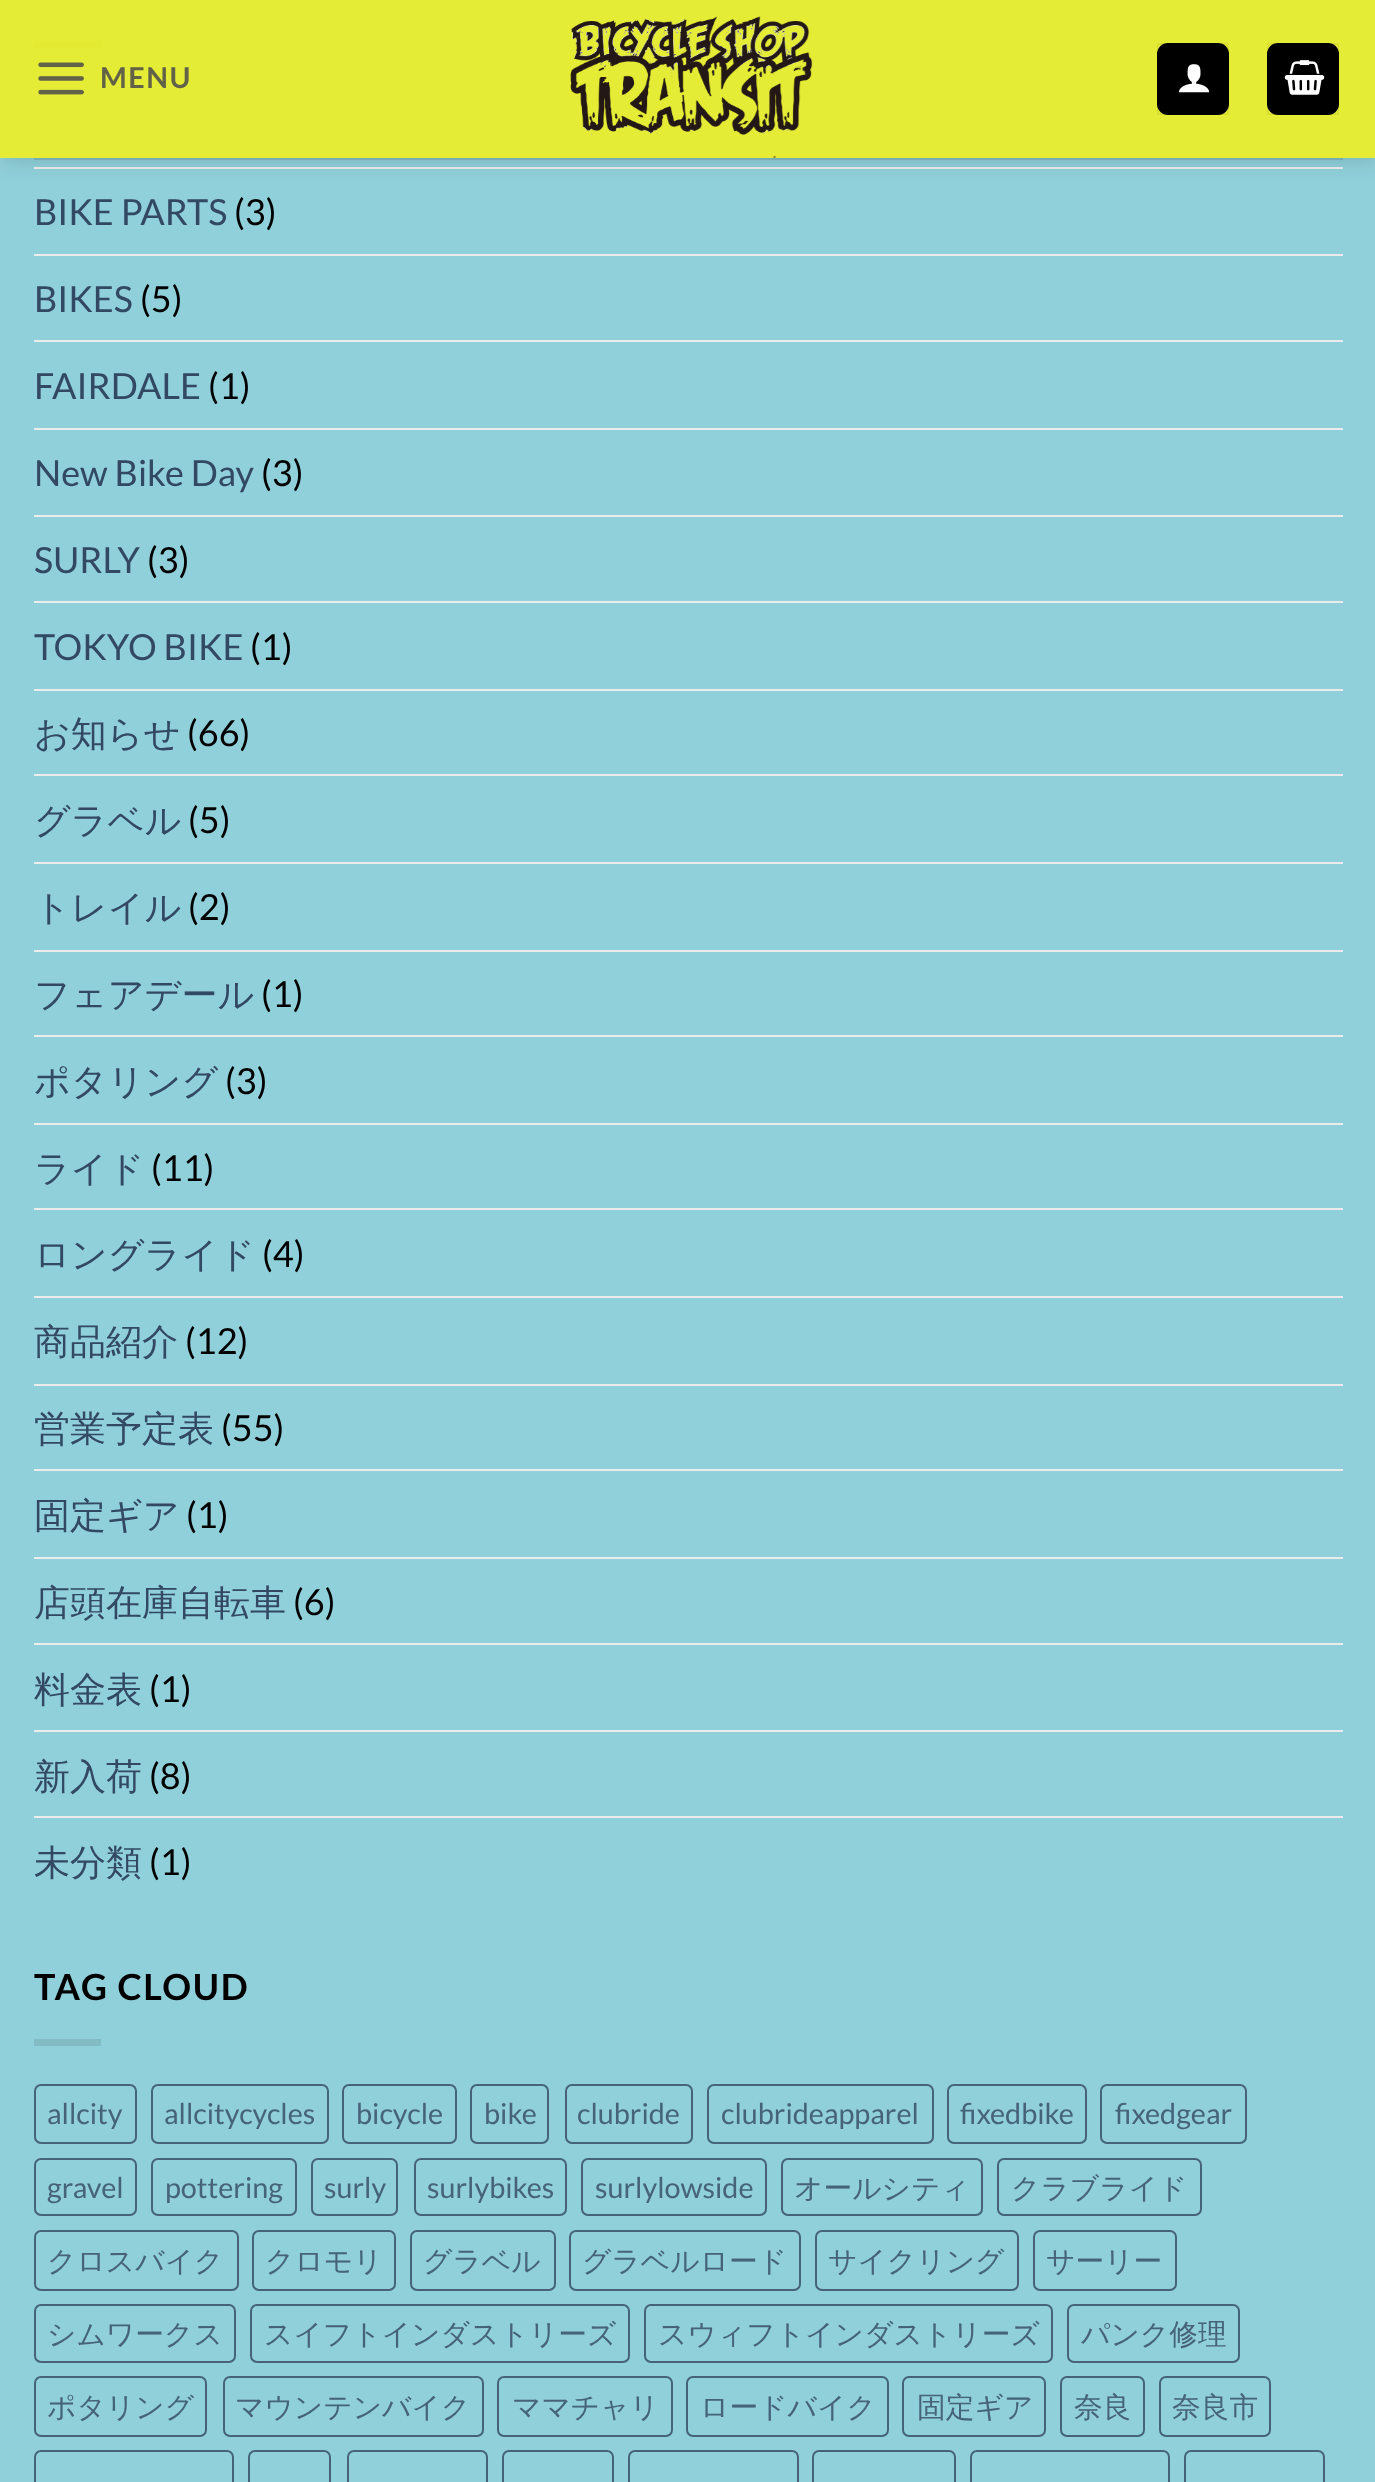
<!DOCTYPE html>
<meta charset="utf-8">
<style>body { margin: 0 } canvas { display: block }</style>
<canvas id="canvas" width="1375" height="2482"></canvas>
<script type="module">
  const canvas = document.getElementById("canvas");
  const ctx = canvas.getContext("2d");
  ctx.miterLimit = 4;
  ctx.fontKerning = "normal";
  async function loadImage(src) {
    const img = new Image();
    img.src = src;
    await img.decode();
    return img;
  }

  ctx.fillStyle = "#90d0da";
  ctx.fillRect(0, 0, 1375, 2482);
  ctx.fillStyle = "#82bbc4";
  ctx.fillRect(34, 41, 67, 7);
  ctx.fillStyle = "#ececec";
  ctx.fillRect(34, 167, 1309, 2);
  ctx.save();
  ctx.beginPath();
  ctx.moveTo(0, 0);
  ctx.lineTo(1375, 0);
  ctx.lineTo(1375, 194);
  ctx.lineTo(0, 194);
  ctx.closePath();
  ctx.moveTo(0, 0);
  ctx.lineTo(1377, 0);
  ctx.lineTo(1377, 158);
  ctx.lineTo(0, 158);
  ctx.closePath();
  ctx.clip("evenodd");
  ctx.fillStyle = "rgba(0, 0, 0, 0.15)";
  ctx.filter = "blur(11px)";
  ctx.beginPath();
  ctx.rect(2, 2, 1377, 158);
  ctx.fill();
  ctx.filter = "none";
  ctx.restore();
  ctx.fillStyle = "rgba(238, 238, 34, 0.9)";
  ctx.fillRect(0, 0, 1375, 158);
  ctx.drawImage(await loadImage("img1.png"), 38, 62, 46, 33);
  ctx.letterSpacing = "1.5px";
  ctx.font = "bold 28.75px Lato";
  ctx.fillStyle = "#616247";
  ctx.fillText("MENU", 100, 88);
  ctx.drawImage(await loadImage("img2.png"), 570, 16, 243, 142);
  ctx.fillStyle = "#000000";
  ctx.beginPath();
  ctx.roundRect(1157, 43, 72, 72, 11);
  ctx.fill();
  ctx.strokeStyle = "rgba(0, 0, 0, 0.05)";
  ctx.lineWidth = 2;
  ctx.strokeRect(1158, 44, 70, 70);
  ctx.drawImage(await loadImage("img3.png"), 1179, 64, 31, 29);
  ctx.beginPath();
  ctx.roundRect(1267, 43, 72, 72, 11);
  ctx.fill();
  ctx.strokeRect(1268, 44, 70, 70);
  ctx.drawImage(await loadImage("img4.png"), 1284, 60, 41, 35);
  ctx.fillStyle = "#77acb4";
  ctx.fillRect(34, 158, 1309, 2);
  ctx.letterSpacing = "0px";
  ctx.font = "36px Lato";
  ctx.fillStyle = "#334862";
  ctx.fillText("BIKE PARTS", 34, 225);
  ctx.fillStyle = "#000000";
  ctx.fillText("(3)", 234, 225);
  ctx.fillStyle = "#ececec";
  ctx.fillRect(34, 254, 1309, 2);
  ctx.fillStyle = "#334862";
  ctx.fillText("BIKES", 34, 312);
  ctx.fillStyle = "#000000";
  ctx.fillText("(5)", 140, 312);
  ctx.fillStyle = "#ececec";
  ctx.fillRect(34, 340, 1309, 2);
  ctx.fillStyle = "#334862";
  ctx.fillText("FAIRDALE", 34, 399);
  ctx.fillStyle = "#000000";
  ctx.fillText("(1)", 208, 399);
  ctx.fillStyle = "#ececec";
  ctx.fillRect(34, 428, 1309, 2);
  ctx.fillStyle = "#334862";
  ctx.fillText("New Bike Day", 34, 486);
  ctx.fillStyle = "#000000";
  ctx.fillText("(3)", 261, 486);
  ctx.fillStyle = "#ececec";
  ctx.fillRect(34, 515, 1309, 2);
  ctx.fillStyle = "#334862";
  ctx.fillText("SURLY", 34, 573);
  ctx.fillStyle = "#000000";
  ctx.fillText("(3)", 147, 573);
  ctx.fillStyle = "#ececec";
  ctx.fillRect(34, 601, 1309, 2);
  ctx.fillStyle = "#334862";
  ctx.fillText("TOKYO BIKE", 34, 660);
  ctx.fillStyle = "#000000";
  ctx.fillText("(1)", 250, 660);
  ctx.fillStyle = "#ececec";
  ctx.fillRect(34, 689, 1309, 2);
  ctx.font = "500 36px WenQuanYi Zen Hei";
  ctx.fillStyle = "#334862";
  ctx.fillText("お知らせ", 34, 746);
  ctx.font = "36px Lato";
  ctx.fillStyle = "#000000";
  ctx.fillText("(66)", 187, 746);
  ctx.fillStyle = "#ececec";
  ctx.fillRect(34, 774, 1309, 2);
  ctx.font = "500 36px WenQuanYi Zen Hei";
  ctx.fillStyle = "#334862";
  ctx.fillText("グラベル", 34, 833);
  ctx.font = "36px Lato";
  ctx.fillStyle = "#000000";
  ctx.fillText("(5)", 188, 833);
  ctx.fillStyle = "#ececec";
  ctx.fillRect(34, 862, 1309, 2);
  ctx.font = "500 36px WenQuanYi Zen Hei";
  ctx.fillStyle = "#334862";
  ctx.fillText("トレイル", 34, 920);
  ctx.font = "36px Lato";
  ctx.fillStyle = "#000000";
  ctx.fillText("(2)", 188, 920);
  ctx.fillStyle = "#ececec";
  ctx.fillRect(34, 950, 1309, 2);
  ctx.font = "500 36px WenQuanYi Zen Hei";
  ctx.fillStyle = "#334862";
  ctx.fillText("フェアデール", 34, 1007);
  ctx.font = "36px Lato";
  ctx.fillStyle = "#000000";
  ctx.fillText("(1)", 261, 1007);
  ctx.fillStyle = "#ececec";
  ctx.fillRect(34, 1035, 1309, 2);
  ctx.font = "500 36px WenQuanYi Zen Hei";
  ctx.fillStyle = "#334862";
  ctx.fillText("ポタリング", 34, 1094);
  ctx.font = "36px Lato";
  ctx.fillStyle = "#000000";
  ctx.fillText("(3)", 225, 1094);
  ctx.fillStyle = "#ececec";
  ctx.fillRect(34, 1123, 1309, 2);
  ctx.font = "500 36px WenQuanYi Zen Hei";
  ctx.fillStyle = "#334862";
  ctx.fillText("ライド", 34, 1181);
  ctx.font = "36px Lato";
  ctx.fillStyle = "#000000";
  ctx.fillText("(11)", 151, 1181);
  ctx.fillStyle = "#ececec";
  ctx.fillRect(34, 1208, 1309, 2);
  ctx.font = "500 36px WenQuanYi Zen Hei";
  ctx.fillStyle = "#334862";
  ctx.fillText("ロングライド", 34, 1267);
  ctx.font = "36px Lato";
  ctx.fillStyle = "#000000";
  ctx.fillText("(4)", 262, 1267);
  ctx.fillStyle = "#ececec";
  ctx.fillRect(34, 1296, 1309, 2);
  ctx.font = "500 36px WenQuanYi Zen Hei";
  ctx.fillStyle = "#334862";
  ctx.fillText("商品紹介", 34, 1354);
  ctx.font = "36px Lato";
  ctx.fillStyle = "#000000";
  ctx.fillText("(12)", 185, 1354);
  ctx.fillStyle = "#ececec";
  ctx.fillRect(34, 1384, 1309, 2);
  ctx.font = "500 36px WenQuanYi Zen Hei";
  ctx.fillStyle = "#334862";
  ctx.fillText("営業予定表", 34, 1441);
  ctx.font = "36px Lato";
  ctx.fillStyle = "#000000";
  ctx.fillText("(55)", 221, 1441);
  ctx.fillStyle = "#ececec";
  ctx.fillRect(34, 1469, 1309, 2);
  ctx.font = "500 36px WenQuanYi Zen Hei";
  ctx.fillStyle = "#334862";
  ctx.fillText("固定ギア", 34, 1528);
  ctx.font = "36px Lato";
  ctx.fillStyle = "#000000";
  ctx.fillText("(1)", 186, 1528);
  ctx.fillStyle = "#ececec";
  ctx.fillRect(34, 1557, 1309, 2);
  ctx.font = "500 36px WenQuanYi Zen Hei";
  ctx.fillStyle = "#334862";
  ctx.fillText("店頭在庫自転車", 34, 1615);
  ctx.font = "36px Lato";
  ctx.fillStyle = "#000000";
  ctx.fillText("(6)", 293, 1615);
  ctx.fillStyle = "#ececec";
  ctx.fillRect(34, 1643, 1309, 2);
  ctx.font = "500 36px WenQuanYi Zen Hei";
  ctx.fillStyle = "#334862";
  ctx.fillText("料金表", 34, 1702);
  ctx.font = "36px Lato";
  ctx.fillStyle = "#000000";
  ctx.fillText("(1)", 149, 1702);
  ctx.fillStyle = "#ececec";
  ctx.fillRect(34, 1730, 1309, 2);
  ctx.font = "500 36px WenQuanYi Zen Hei";
  ctx.fillStyle = "#334862";
  ctx.fillText("新入荷", 34, 1789);
  ctx.font = "36px Lato";
  ctx.fillStyle = "#000000";
  ctx.fillText("(8)", 149, 1789);
  ctx.fillStyle = "#ececec";
  ctx.fillRect(34, 1816, 1309, 2);
  ctx.font = "500 36px WenQuanYi Zen Hei";
  ctx.fillStyle = "#334862";
  ctx.fillText("未分類", 34, 1875);
  ctx.font = "36px Lato";
  ctx.fillStyle = "#000000";
  ctx.fillText("(1)", 149, 1875);
  ctx.letterSpacing = "1.75px";
  ctx.font = "bold 36px Lato";
  ctx.fillText("TAG CLOUD", 34, 2000);
  ctx.fillStyle = "#82bbc4";
  ctx.fillRect(34, 2039, 67, 7);
  ctx.beginPath();
  ctx.roundRect(35, 2085, 101, 58, 6);
  ctx.strokeStyle = "#46637a";
  ctx.stroke();
  ctx.letterSpacing = "0px";
  ctx.font = "28.75px Lato";
  ctx.fillStyle = "#46637a";
  ctx.fillText("allcity", 47, 2124);
  ctx.beginPath();
  ctx.roundRect(152, 2085, 176, 58, 6);
  ctx.stroke();
  ctx.fillText("allcitycycles", 164, 2124);
  ctx.beginPath();
  ctx.roundRect(343, 2085, 113, 58, 6);
  ctx.stroke();
  ctx.fillText("bicycle", 356, 2124);
  ctx.beginPath();
  ctx.roundRect(471, 2085, 77, 58, 6);
  ctx.stroke();
  ctx.fillText("bike", 484, 2124);
  ctx.beginPath();
  ctx.roundRect(566, 2085, 126, 58, 6);
  ctx.stroke();
  ctx.fillText("clubride", 577, 2124);
  ctx.beginPath();
  ctx.roundRect(708, 2085, 225, 58, 6);
  ctx.stroke();
  ctx.fillText("clubrideapparel", 721, 2124);
  ctx.beginPath();
  ctx.roundRect(948, 2085, 138, 58, 6);
  ctx.stroke();
  ctx.fillText("fixedbike", 960, 2124);
  ctx.beginPath();
  ctx.roundRect(1101, 2085, 145, 58, 6);
  ctx.stroke();
  ctx.fillText("fixedgear", 1115, 2124);
  ctx.beginPath();
  ctx.roundRect(35, 2159, 101, 56, 6);
  ctx.stroke();
  ctx.fillText("gravel", 47, 2198);
  ctx.beginPath();
  ctx.roundRect(152, 2159, 144, 56, 6);
  ctx.stroke();
  ctx.fillText("pottering", 165, 2198);
  ctx.beginPath();
  ctx.roundRect(312, 2159, 85, 56, 6);
  ctx.stroke();
  ctx.fillText("surly", 324, 2198);
  ctx.beginPath();
  ctx.roundRect(415, 2159, 151, 56, 6);
  ctx.stroke();
  ctx.fillText("surlybikes", 427, 2198);
  ctx.beginPath();
  ctx.roundRect(582, 2159, 184, 56, 6);
  ctx.stroke();
  ctx.fillText("surlylowside", 595, 2198);
  ctx.beginPath();
  ctx.roundRect(782, 2159, 200, 56, 6);
  ctx.stroke();
  ctx.font = "500 28.75px WenQuanYi Zen Hei";
  ctx.fillText("オールシティ", 794, 2198);
  ctx.beginPath();
  ctx.roundRect(998, 2159, 203, 56, 6);
  ctx.stroke();
  ctx.fillText("クラブライド", 1011, 2198);
  ctx.beginPath();
  ctx.roundRect(35, 2231, 203, 59, 6);
  ctx.stroke();
  ctx.fillText("クロスバイク", 47, 2271);
  ctx.beginPath();
  ctx.roundRect(253, 2231, 142, 59, 6);
  ctx.stroke();
  ctx.fillText("クロモリ", 265, 2271);
  ctx.beginPath();
  ctx.roundRect(411, 2231, 144, 59, 6);
  ctx.stroke();
  ctx.fillText("グラベル", 423, 2271);
  ctx.beginPath();
  ctx.roundRect(570, 2231, 230, 59, 6);
  ctx.stroke();
  ctx.fillText("グラベルロード", 582, 2271);
  ctx.beginPath();
  ctx.roundRect(816, 2231, 202, 59, 6);
  ctx.stroke();
  ctx.fillText("サイクリング", 828, 2271);
  ctx.beginPath();
  ctx.roundRect(1034, 2231, 142, 59, 6);
  ctx.stroke();
  ctx.fillText("サーリー", 1046, 2271);
  ctx.beginPath();
  ctx.roundRect(35, 2305, 200, 57, 6);
  ctx.stroke();
  ctx.fillText("シムワークス", 47, 2344);
  ctx.beginPath();
  ctx.roundRect(251, 2305, 378, 57, 6);
  ctx.stroke();
  ctx.fillText("スイフトインダストリーズ", 264, 2344);
  ctx.beginPath();
  ctx.roundRect(645, 2305, 407, 57, 6);
  ctx.stroke();
  ctx.fillText("スウィフトインダストリーズ", 658, 2344);
  ctx.beginPath();
  ctx.roundRect(1068, 2305, 171, 57, 6);
  ctx.stroke();
  ctx.fillText("パンク修理", 1081, 2344);
  ctx.beginPath();
  ctx.roundRect(35, 2377, 171, 59, 6);
  ctx.stroke();
  ctx.fillText("ポタリング", 47, 2417);
  ctx.beginPath();
  ctx.roundRect(224, 2377, 259, 59, 6);
  ctx.stroke();
  ctx.fillText("マウンテンバイク", 235, 2417);
  ctx.beginPath();
  ctx.roundRect(498, 2377, 174, 59, 6);
  ctx.stroke();
  ctx.fillText("ママチャリ", 512, 2417);
  ctx.beginPath();
  ctx.roundRect(687, 2377, 201, 59, 6);
  ctx.stroke();
  ctx.fillText("ロードバイク", 700, 2417);
  ctx.beginPath();
  ctx.roundRect(903, 2377, 142, 59, 6);
  ctx.stroke();
  ctx.fillText("固定ギア", 917, 2417);
  ctx.beginPath();
  ctx.roundRect(1061, 2377, 83, 59, 6);
  ctx.stroke();
  ctx.fillText("奈良", 1074, 2417);
  ctx.beginPath();
  ctx.roundRect(1160, 2377, 110, 59, 6);
  ctx.stroke();
  ctx.fillText("奈良市", 1172, 2417);
  ctx.beginPath();
  ctx.roundRect(35, 2451, 198, 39, 6);
  ctx.stroke();
  ctx.beginPath();
  ctx.roundRect(249, 2451, 81, 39, 6);
  ctx.stroke();
  ctx.beginPath();
  ctx.roundRect(348, 2451, 139, 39, 6);
  ctx.stroke();
  ctx.beginPath();
  ctx.roundRect(503, 2451, 110, 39, 6);
  ctx.stroke();
  ctx.beginPath();
  ctx.roundRect(629, 2451, 169, 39, 6);
  ctx.stroke();
  ctx.beginPath();
  ctx.roundRect(813, 2451, 142, 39, 6);
  ctx.stroke();
  ctx.beginPath();
  ctx.roundRect(971, 2451, 198, 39, 6);
  ctx.stroke();
  ctx.beginPath();
  ctx.roundRect(1185, 2451, 139, 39, 6);
  ctx.stroke();
</script>
